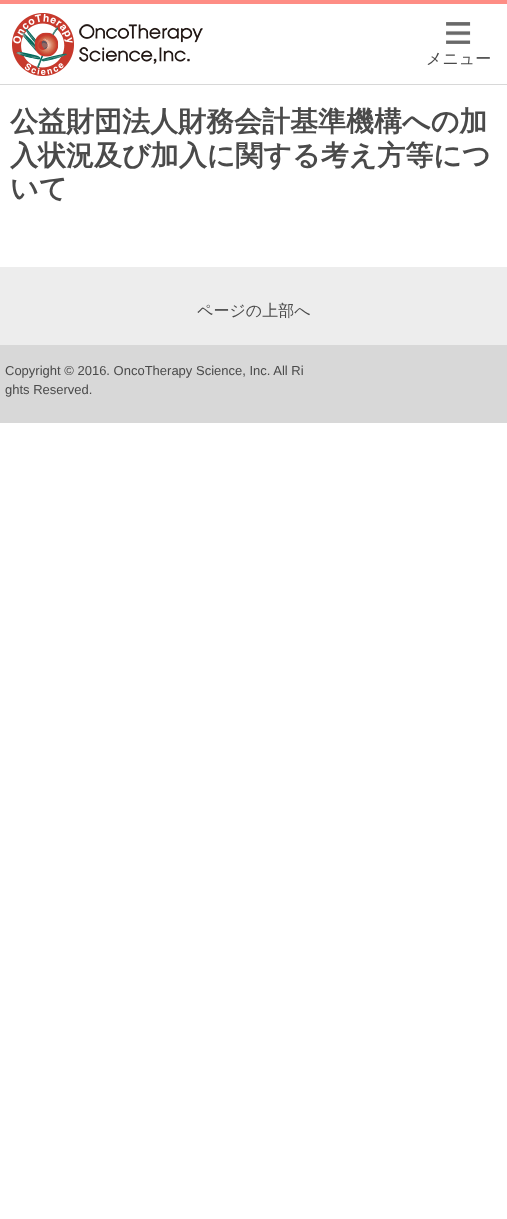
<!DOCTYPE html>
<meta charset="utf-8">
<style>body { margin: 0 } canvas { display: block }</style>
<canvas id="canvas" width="507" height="1219"></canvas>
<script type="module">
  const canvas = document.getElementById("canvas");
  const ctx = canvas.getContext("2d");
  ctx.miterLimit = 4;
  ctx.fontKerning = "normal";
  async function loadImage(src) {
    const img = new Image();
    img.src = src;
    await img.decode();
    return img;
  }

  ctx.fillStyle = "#ffffff";
  ctx.fillRect(0, 0, 507, 1219);
  ctx.fillStyle = "#fe8d85";
  ctx.fillRect(0, 0, 507, 4);
  ctx.fillStyle = "#d8d8d8";
  ctx.fillRect(0, 84, 507, 1);
  ctx.drawImage(await loadImage("img1.png"), 12, 13, 191, 63);
  ctx.drawImage(await loadImage("img2.png"), 446, 22, 25, 22);
  ctx.font = "500 16px WenQuanYi Zen Hei";
  ctx.fillStyle = "#4a4a4a";
  ctx.fillText("メニュー", 426, 64);
  ctx.font = "bold 28px WenQuanYi Zen Hei";
  ctx.fillText("公益財団法人財務会計基準機構への加", 10, 131);
  ctx.fillText("入状況及び加入に関する考え方等につ", 10, 165);
  ctx.fillText("いて", 10, 198);
  ctx.fillStyle = "#ededed";
  ctx.fillRect(0, 267, 507, 78);
  ctx.font = "500 16px WenQuanYi Zen Hei";
  ctx.fillStyle = "#4a4a4a";
  ctx.fillText("ページの上部へ", 197, 316);
  ctx.fillStyle = "#d8d8d8";
  ctx.fillRect(0, 345, 507, 78);
  ctx.font = "13px Liberation Sans";
  ctx.fillStyle = "#4a4a4a";
  ctx.fillText("Copyright © 2016. OncoTherapy Science, Inc. All Ri", 5, 375);
  ctx.fillText("ghts Reserved.", 5, 394);
</script>
